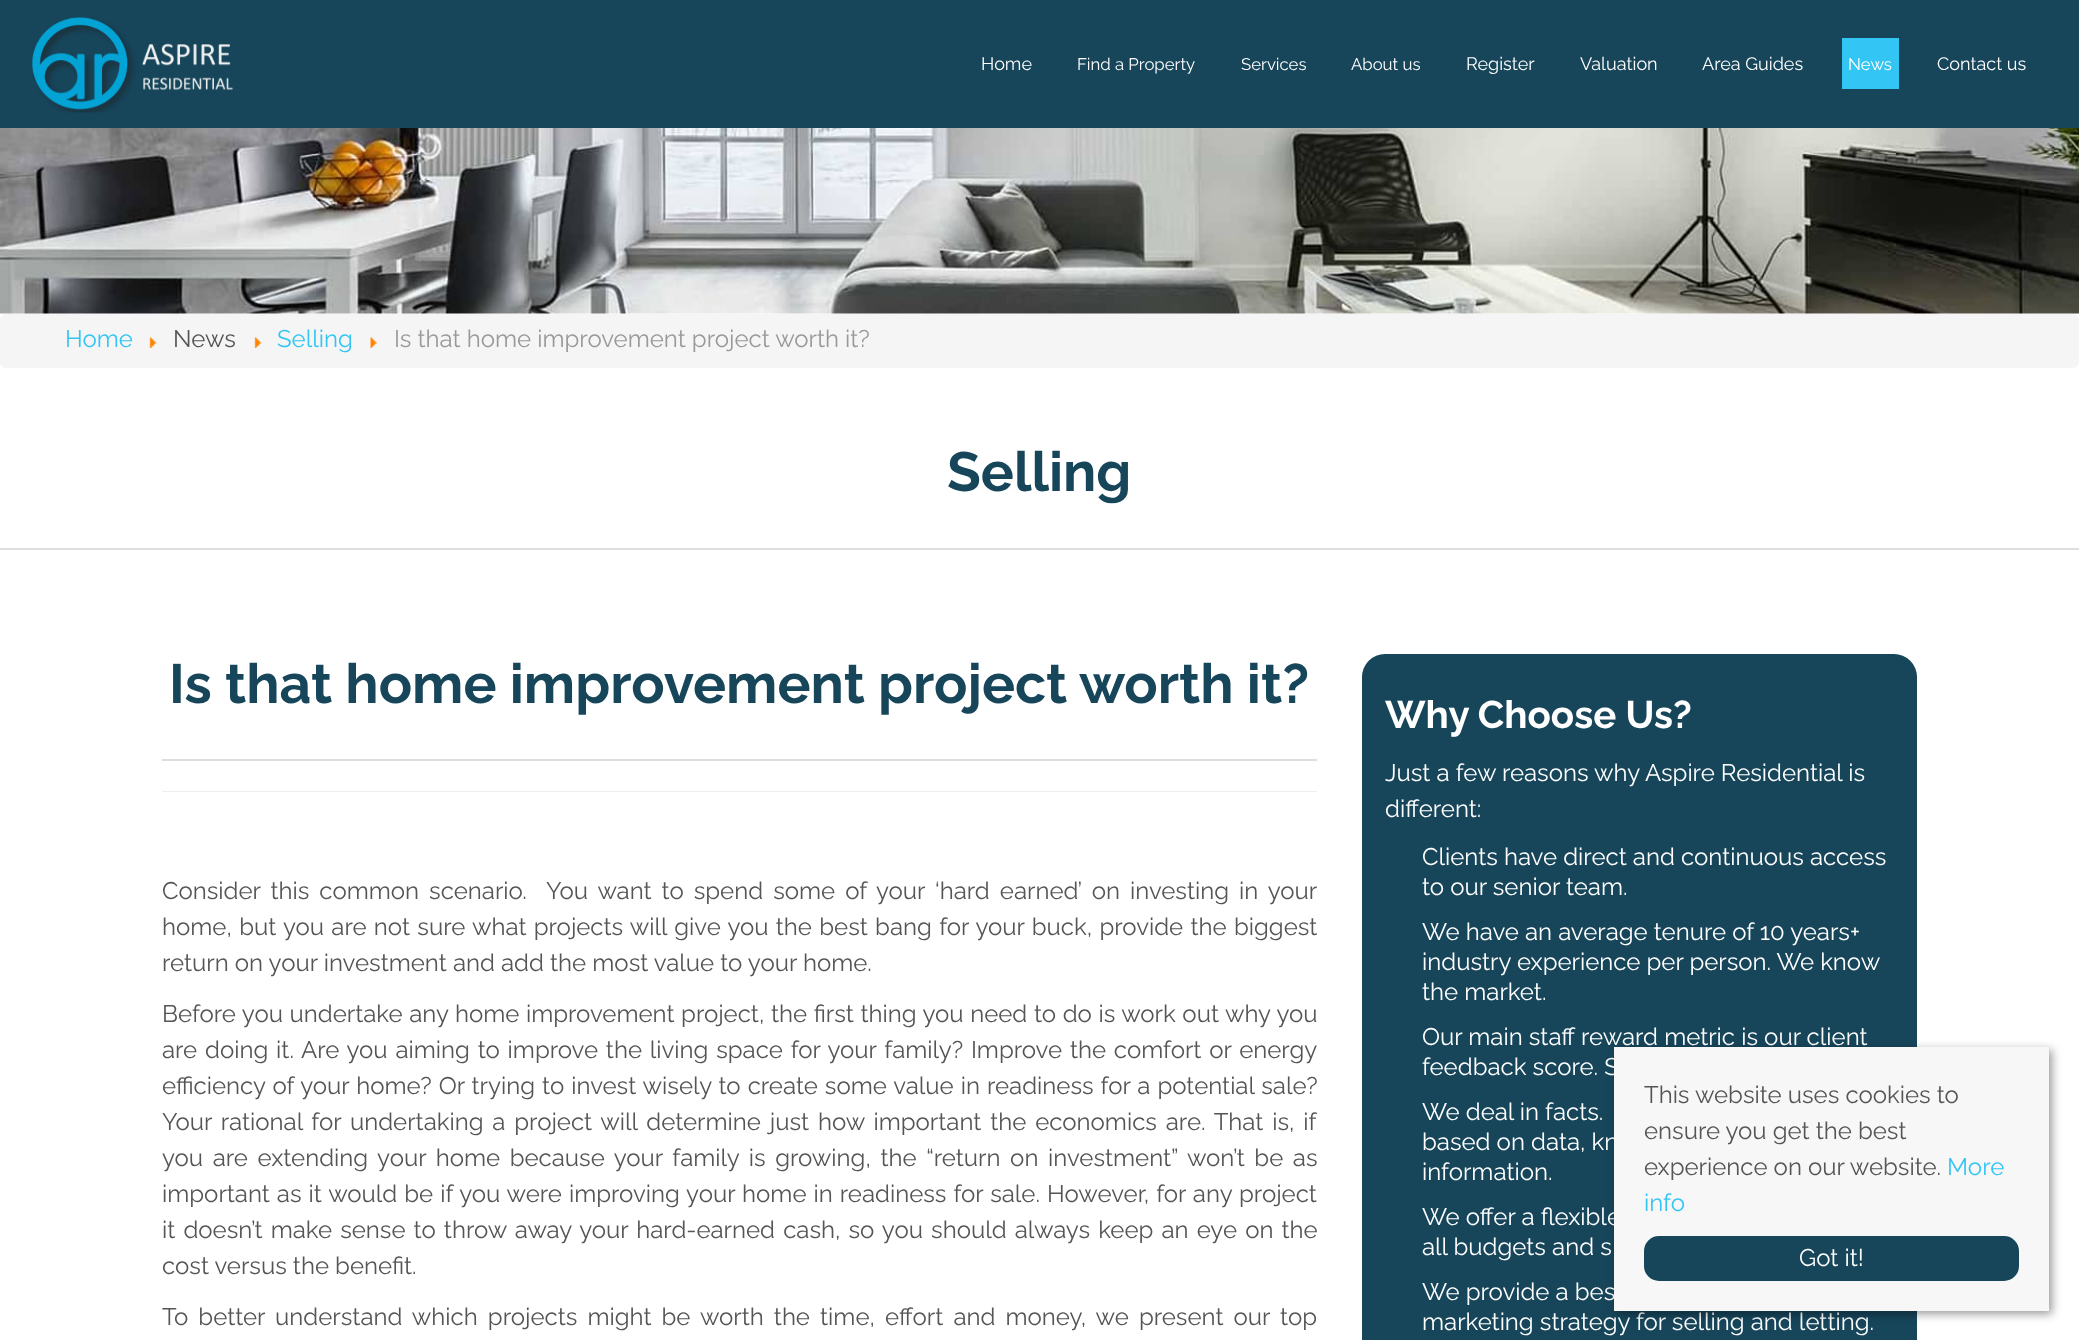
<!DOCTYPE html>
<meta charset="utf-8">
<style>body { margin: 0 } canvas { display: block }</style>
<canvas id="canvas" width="2079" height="1340"></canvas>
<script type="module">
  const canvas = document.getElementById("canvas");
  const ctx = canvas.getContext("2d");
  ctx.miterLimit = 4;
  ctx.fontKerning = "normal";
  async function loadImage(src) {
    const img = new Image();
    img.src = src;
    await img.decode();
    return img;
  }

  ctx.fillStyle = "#ffffff";
  ctx.fillRect(0, 0, 2079, 1340);
  ctx.fillStyle = "#17465b";
  ctx.fillRect(0, 0, 2079, 128);
  ctx.drawImage(await loadImage("img1.png"), 32, 17, 201, 96);
  ctx.font = "18px Raleway";
  ctx.fillStyle = "#ffffff";
  ctx.fillText("Home", 981, 70);
  ctx.font = "16.75px Raleway";
  ctx.fillText("Find a Property", 1077, 70);
  ctx.fillText("Services", 1241, 70);
  ctx.fillText("About us", 1351, 70);
  ctx.font = "18px Raleway";
  ctx.fillText("Register", 1466, 70);
  ctx.fillText("Valuation", 1580, 70);
  ctx.fillText("Area Guides", 1702, 70);
  ctx.fillStyle = "#33c6f5";
  ctx.fillRect(1842, 38, 57, 51);
  ctx.font = "16.75px Raleway";
  ctx.fillStyle = "#ffffff";
  ctx.fillText("News", 1848, 70);
  ctx.font = "18px Raleway";
  ctx.fillText("Contact us", 1937, 70);
  ctx.drawImage(await loadImage("img2.png"), 0, 128, 2079, 186);
  ctx.fillStyle = "#f5f5f5";
  ctx.beginPath();
  ctx.roundRect(0, 314, 2079, 54, 6);
  ctx.fill();
  ctx.font = "24px Raleway";
  ctx.fillStyle = "#33c6f5";
  ctx.fillText("Home", 65, 347);
  ctx.drawImage(await loadImage("img3.png"), 149, 337, 8, 11);
  ctx.fillStyle = "#555555";
  ctx.fillText("News", 173, 347);
  ctx.drawImage(await loadImage("img3.png"), 254, 337, 8, 11);
  ctx.fillStyle = "#33c6f5";
  ctx.fillText("Selling", 277, 347);
  ctx.drawImage(await loadImage("img4.png"), 370, 337, 7, 11);
  ctx.fillStyle = "#999999";
  ctx.fillText("Is that home improvement project worth it?", 394, 347);
  ctx.fillStyle = "#dedede";
  ctx.fillRect(0, 548, 2079, 2);
  ctx.font = "bold 55.2px Raleway";
  ctx.fillStyle = "#17465b";
  ctx.fillText("Selling", 947, 491);
  ctx.fillStyle = "#dedede";
  ctx.fillRect(162, 759, 1155, 2);
  ctx.fillStyle = "#17465b";
  ctx.fillText("Is that home improvement project worth it?", 169, 703);
  ctx.fillStyle = "#eeeeee";
  ctx.fillRect(162, 791, 1155, 1);
  ctx.wordSpacing = "3.9px";
  ctx.font = "24px Raleway";
  ctx.fillStyle = "#555555";
  ctx.fillText("Consider this common scenario.  You want to spend some of your ‘hard earned’ on investing in your", 162, 899);
  ctx.wordSpacing = "1.2px";
  ctx.fillText("home, but you are not sure what projects will give you the best bang for your buck, provide the biggest", 162, 935);
  ctx.wordSpacing = "0px";
  ctx.fillText("return on your investment and add the most value to your home.", 162, 971);
  ctx.wordSpacing = "0.5px";
  ctx.fillText("Before you undertake any home improvement project, the first thing you need to do is work out why you", 162, 1022);
  ctx.wordSpacing = "1.7px";
  ctx.fillText("are doing it. Are you aiming to improve the living space for your family? Improve the comfort or energy", 162, 1058);
  ctx.wordSpacing = "0.9px";
  ctx.fillText("efficiency of your home? Or trying to invest wisely to create some value in readiness for a potential sale?", 162, 1094);
  ctx.wordSpacing = "2.75px";
  ctx.fillText("Your rational for undertaking a project will determine just how important the economics are. That is, if", 162, 1130);
  ctx.wordSpacing = "3.5px";
  ctx.fillText("you are extending your home because your family is growing, the “return on investment” won’t be as", 162, 1166);
  ctx.wordSpacing = "0.9px";
  ctx.fillText("important as it would be if you were improving your home in readiness for sale. However, for any project", 162, 1202);
  ctx.wordSpacing = "2px";
  ctx.fillText("it doesn’t make sense to throw away your hard-earned cash, so you should always keep an eye on the", 162, 1238);
  ctx.wordSpacing = "0px";
  ctx.fillText("cost versus the benefit.", 162, 1274);
  ctx.wordSpacing = "4px";
  ctx.fillText("To better understand which projects might be worth the time, effort and money, we present our top", 162, 1325);
  ctx.fillStyle = "#17465b";
  ctx.beginPath();
  ctx.roundRect(1362, 654, 555, 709, 23);
  ctx.fill();
  ctx.wordSpacing = "0px";
  ctx.font = "bold 38.5px Raleway";
  ctx.fillStyle = "#ffffff";
  ctx.fillText("Why Choose Us?", 1385, 728);
  ctx.font = "24px Raleway";
  ctx.fillText("Just a few reasons why Aspire Residential is", 1385, 781);
  ctx.fillText("different:", 1385, 817);
  ctx.fillText("Clients have direct and continuous access", 1422, 865);
  ctx.fillText("to our senior team.", 1422, 895);
  ctx.fillText("We have an average tenure of 10 years+", 1422, 940);
  ctx.fillText("industry experience per person. We know", 1422, 970);
  ctx.fillText("the market.", 1422, 1000);
  ctx.fillText("Our main staff reward metric is our client", 1422, 1045);
  ctx.fillText("feedback score. S", 1422, 1075);
  ctx.fillText("We deal in facts.", 1422, 1120);
  ctx.fillText("based on data, kn", 1422, 1150);
  ctx.fillText("information.", 1422, 1180);
  ctx.fillText("We offer a flexible", 1422, 1225);
  ctx.fillText("all budgets and s", 1422, 1255);
  ctx.fillText("We provide a bes", 1422, 1300);
  ctx.fillText("marketing strategy for selling and letting.", 1422, 1330);
  ctx.fillStyle = "rgba(0, 0, 0, 0.4)";
  ctx.filter = "blur(5px)";
  ctx.beginPath();
  ctx.rect(1617, 1050, 435, 264);
  ctx.fill();
  ctx.filter = "none";
  ctx.fillStyle = "#f7f7f7";
  ctx.fillRect(1614, 1047, 435, 264);
  ctx.fillStyle = "#555555";
  ctx.fillText("This website uses cookies to", 1644, 1103);
  ctx.fillText("ensure you get the best", 1644, 1139);
  ctx.fillText("experience on our website.", 1644, 1175);
  ctx.fillStyle = "#33c6f5";
  ctx.fillText("More", 1947, 1175);
  ctx.fillText("info", 1644, 1211);
  ctx.fillStyle = "#17465b";
  ctx.beginPath();
  ctx.roundRect(1644, 1236, 375, 45, 15);
  ctx.fill();
  ctx.fillStyle = "#ffffff";
  ctx.fillText("Got it!", 1799, 1266);
</script>
